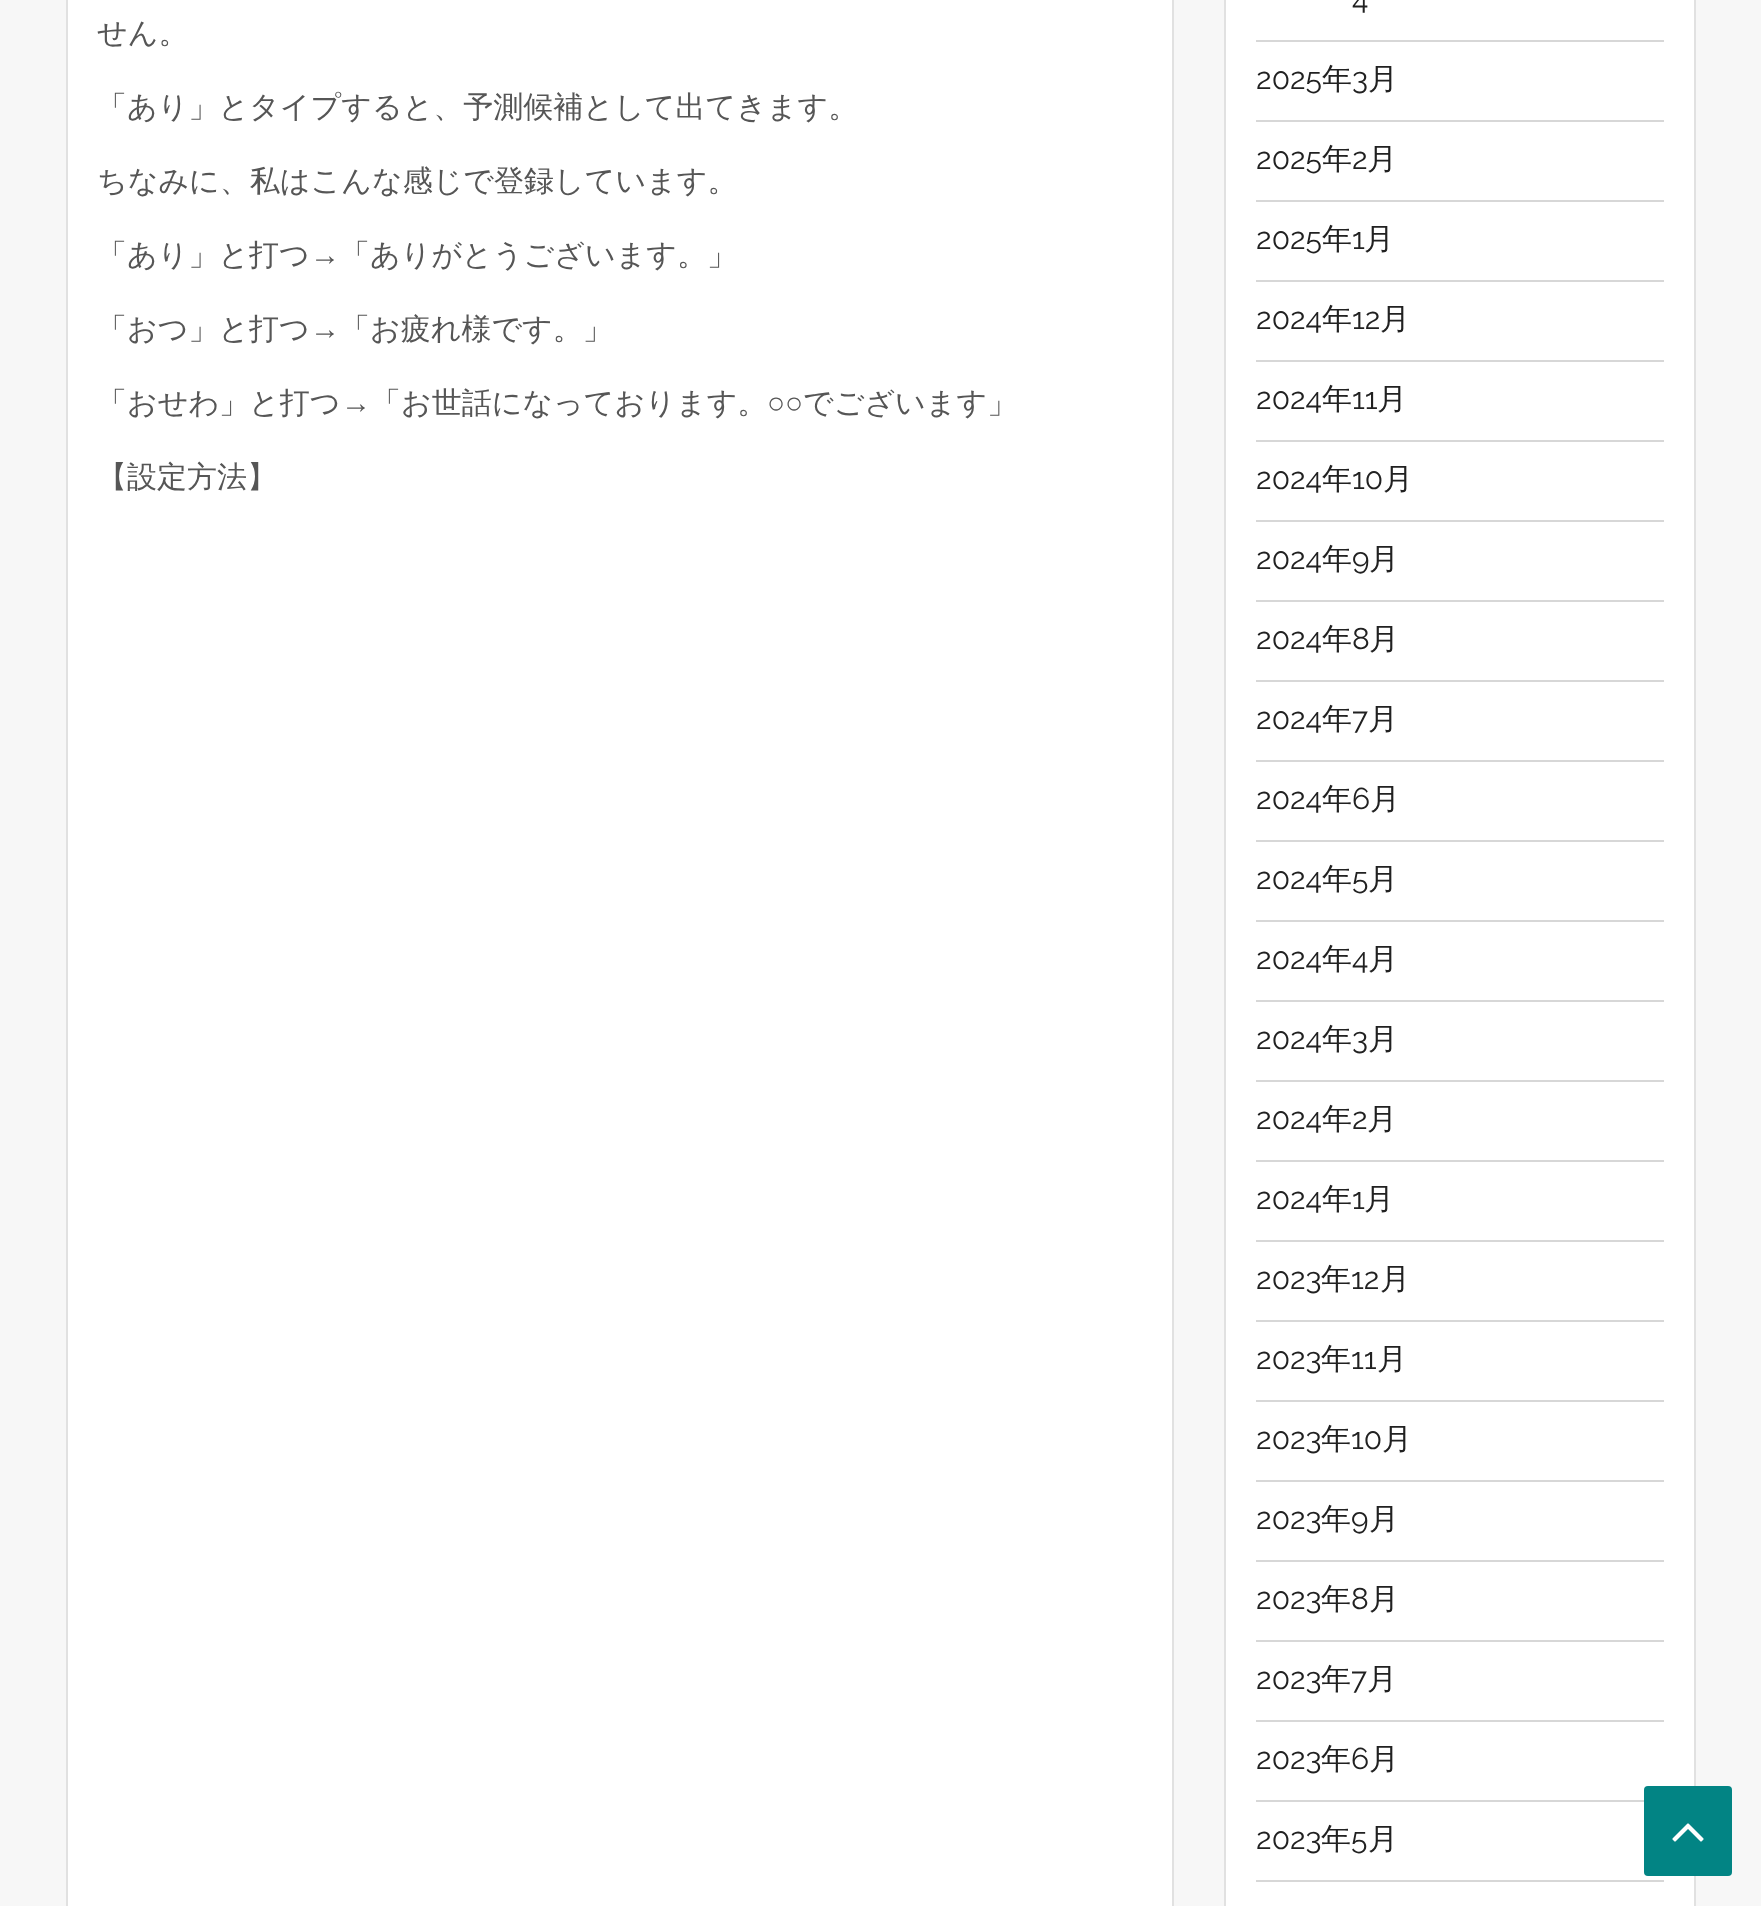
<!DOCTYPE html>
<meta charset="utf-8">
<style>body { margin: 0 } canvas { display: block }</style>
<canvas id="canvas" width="1761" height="1906"></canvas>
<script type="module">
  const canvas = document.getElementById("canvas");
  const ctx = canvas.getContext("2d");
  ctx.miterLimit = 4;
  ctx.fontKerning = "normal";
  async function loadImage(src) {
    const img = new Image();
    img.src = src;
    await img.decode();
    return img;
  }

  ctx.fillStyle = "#f7f7f7";
  ctx.fillRect(0, 0, 1761, 1906);
  ctx.fillStyle = "#ffffff";
  ctx.beginPath();
  ctx.rect(67, -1, 1106, 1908);
  ctx.fill();
  ctx.strokeStyle = "#e1e1e1";
  ctx.lineWidth = 2;
  ctx.stroke();
  ctx.font = "500 30px WenQuanYi Zen Hei";
  ctx.fillStyle = "#565656";
  ctx.fillText("せん。", 97, 43);
  ctx.fillText("「あり」とタイプすると、予測候補として出てきます。", 97, 117);
  ctx.fillText("ちなみに、私はこんな感じで登録しています。", 97, 191);
  ctx.fillText("「あり」と打つ", 97, 265);
  ctx.font = "30px Liberation Sans";
  ctx.fillText("→", 310, 265);
  ctx.font = "500 30px WenQuanYi Zen Hei";
  ctx.fillText("「ありがとうございます。」", 340, 265);
  ctx.fillText("「おつ」と打つ", 97, 339);
  ctx.font = "30px Liberation Sans";
  ctx.fillText("→", 310, 339);
  ctx.font = "500 30px WenQuanYi Zen Hei";
  ctx.fillText("「お疲れ様です。」", 340, 339);
  ctx.fillText("「おせわ」と打つ", 97, 413);
  ctx.font = "30px Liberation Sans";
  ctx.fillText("→", 341, 413);
  ctx.font = "500 30px WenQuanYi Zen Hei";
  ctx.fillText("「お世話になっております。", 371, 413);
  ctx.font = "30px Liberation Sans";
  ctx.fillText("○○", 767, 413);
  ctx.font = "500 30px WenQuanYi Zen Hei";
  ctx.fillText("でございます」", 803, 413);
  ctx.fillText("【設定方法】", 97, 487);
  ctx.fillStyle = "#ffffff";
  ctx.beginPath();
  ctx.rect(1225, -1, 470, 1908);
  ctx.fill();
  ctx.stroke();
  ctx.font = "100 30px Raleway";
  ctx.fillStyle = "#212121";
  ctx.fillText("4", 1352, 9);
  ctx.fillStyle = "#d7d7d7";
  ctx.fillRect(1256, 40, 408, 2);
  ctx.fillStyle = "#212121";
  ctx.fillText("2025", 1256, 89);
  ctx.font = "500 30px WenQuanYi Zen Hei";
  ctx.fillText("年", 1322, 89);
  ctx.font = "100 30px Raleway";
  ctx.fillText("3", 1352, 89);
  ctx.font = "500 30px WenQuanYi Zen Hei";
  ctx.fillText("月", 1368, 89);
  ctx.fillStyle = "#d7d7d7";
  ctx.fillRect(1256, 120, 408, 2);
  ctx.font = "100 30px Raleway";
  ctx.fillStyle = "#212121";
  ctx.fillText("2025", 1256, 169);
  ctx.font = "500 30px WenQuanYi Zen Hei";
  ctx.fillText("年", 1322, 169);
  ctx.font = "100 30px Raleway";
  ctx.fillText("2", 1352, 169);
  ctx.font = "500 30px WenQuanYi Zen Hei";
  ctx.fillText("月", 1367, 169);
  ctx.fillStyle = "#d7d7d7";
  ctx.fillRect(1256, 200, 408, 2);
  ctx.font = "100 30px Raleway";
  ctx.fillStyle = "#212121";
  ctx.fillText("2025", 1256, 249);
  ctx.font = "500 30px WenQuanYi Zen Hei";
  ctx.fillText("年", 1322, 249);
  ctx.font = "100 30px Raleway";
  ctx.fillText("1", 1352, 249);
  ctx.font = "500 30px WenQuanYi Zen Hei";
  ctx.fillText("月", 1364, 249);
  ctx.fillStyle = "#d7d7d7";
  ctx.fillRect(1256, 280, 408, 2);
  ctx.font = "100 30px Raleway";
  ctx.fillStyle = "#212121";
  ctx.fillText("2024", 1256, 329);
  ctx.font = "500 30px WenQuanYi Zen Hei";
  ctx.fillText("年", 1322, 329);
  ctx.font = "100 30px Raleway";
  ctx.fillText("12", 1352, 329);
  ctx.font = "500 30px WenQuanYi Zen Hei";
  ctx.fillText("月", 1380, 329);
  ctx.fillStyle = "#d7d7d7";
  ctx.fillRect(1256, 360, 408, 2);
  ctx.font = "100 30px Raleway";
  ctx.fillStyle = "#212121";
  ctx.fillText("2024", 1256, 409);
  ctx.font = "500 30px WenQuanYi Zen Hei";
  ctx.fillText("年", 1322, 409);
  ctx.font = "100 30px Raleway";
  ctx.fillText("11", 1352, 409);
  ctx.font = "500 30px WenQuanYi Zen Hei";
  ctx.fillText("月", 1377, 409);
  ctx.fillStyle = "#d7d7d7";
  ctx.fillRect(1256, 440, 408, 2);
  ctx.font = "100 30px Raleway";
  ctx.fillStyle = "#212121";
  ctx.fillText("2024", 1256, 489);
  ctx.font = "500 30px WenQuanYi Zen Hei";
  ctx.fillText("年", 1322, 489);
  ctx.font = "100 30px Raleway";
  ctx.fillText("10", 1352, 489);
  ctx.font = "500 30px WenQuanYi Zen Hei";
  ctx.fillText("月", 1383, 489);
  ctx.fillStyle = "#d7d7d7";
  ctx.fillRect(1256, 520, 408, 2);
  ctx.font = "100 30px Raleway";
  ctx.fillStyle = "#212121";
  ctx.fillText("2024", 1256, 569);
  ctx.font = "500 30px WenQuanYi Zen Hei";
  ctx.fillText("年", 1322, 569);
  ctx.font = "100 30px Raleway";
  ctx.fillText("9", 1352, 569);
  ctx.font = "500 30px WenQuanYi Zen Hei";
  ctx.fillText("月", 1369, 569);
  ctx.fillStyle = "#d7d7d7";
  ctx.fillRect(1256, 600, 408, 2);
  ctx.font = "100 30px Raleway";
  ctx.fillStyle = "#212121";
  ctx.fillText("2024", 1256, 649);
  ctx.font = "500 30px WenQuanYi Zen Hei";
  ctx.fillText("年", 1322, 649);
  ctx.font = "100 30px Raleway";
  ctx.fillText("8", 1352, 649);
  ctx.font = "500 30px WenQuanYi Zen Hei";
  ctx.fillText("月", 1369, 649);
  ctx.fillStyle = "#d7d7d7";
  ctx.fillRect(1256, 680, 408, 2);
  ctx.font = "100 30px Raleway";
  ctx.fillStyle = "#212121";
  ctx.fillText("2024", 1256, 729);
  ctx.font = "500 30px WenQuanYi Zen Hei";
  ctx.fillText("年", 1322, 729);
  ctx.font = "100 30px Raleway";
  ctx.fillText("7", 1352, 729);
  ctx.font = "500 30px WenQuanYi Zen Hei";
  ctx.fillText("月", 1368, 729);
  ctx.fillStyle = "#d7d7d7";
  ctx.fillRect(1256, 760, 408, 2);
  ctx.font = "100 30px Raleway";
  ctx.fillStyle = "#212121";
  ctx.fillText("2024", 1256, 809);
  ctx.font = "500 30px WenQuanYi Zen Hei";
  ctx.fillText("年", 1322, 809);
  ctx.font = "100 30px Raleway";
  ctx.fillText("6", 1352, 809);
  ctx.font = "500 30px WenQuanYi Zen Hei";
  ctx.fillText("月", 1370, 809);
  ctx.fillStyle = "#d7d7d7";
  ctx.fillRect(1256, 840, 408, 2);
  ctx.font = "100 30px Raleway";
  ctx.fillStyle = "#212121";
  ctx.fillText("2024", 1256, 889);
  ctx.font = "500 30px WenQuanYi Zen Hei";
  ctx.fillText("年", 1322, 889);
  ctx.font = "100 30px Raleway";
  ctx.fillText("5", 1352, 889);
  ctx.font = "500 30px WenQuanYi Zen Hei";
  ctx.fillText("月", 1368, 889);
  ctx.fillStyle = "#d7d7d7";
  ctx.fillRect(1256, 920, 408, 2);
  ctx.font = "100 30px Raleway";
  ctx.fillStyle = "#212121";
  ctx.fillText("2024", 1256, 969);
  ctx.font = "500 30px WenQuanYi Zen Hei";
  ctx.fillText("年", 1322, 969);
  ctx.font = "100 30px Raleway";
  ctx.fillText("4", 1352, 969);
  ctx.font = "500 30px WenQuanYi Zen Hei";
  ctx.fillText("月", 1368, 969);
  ctx.fillStyle = "#d7d7d7";
  ctx.fillRect(1256, 1000, 408, 2);
  ctx.font = "100 30px Raleway";
  ctx.fillStyle = "#212121";
  ctx.fillText("2024", 1256, 1049);
  ctx.font = "500 30px WenQuanYi Zen Hei";
  ctx.fillText("年", 1322, 1049);
  ctx.font = "100 30px Raleway";
  ctx.fillText("3", 1352, 1049);
  ctx.font = "500 30px WenQuanYi Zen Hei";
  ctx.fillText("月", 1368, 1049);
  ctx.fillStyle = "#d7d7d7";
  ctx.fillRect(1256, 1080, 408, 2);
  ctx.font = "100 30px Raleway";
  ctx.fillStyle = "#212121";
  ctx.fillText("2024", 1256, 1129);
  ctx.font = "500 30px WenQuanYi Zen Hei";
  ctx.fillText("年", 1322, 1129);
  ctx.font = "100 30px Raleway";
  ctx.fillText("2", 1352, 1129);
  ctx.font = "500 30px WenQuanYi Zen Hei";
  ctx.fillText("月", 1367, 1129);
  ctx.fillStyle = "#d7d7d7";
  ctx.fillRect(1256, 1160, 408, 2);
  ctx.font = "100 30px Raleway";
  ctx.fillStyle = "#212121";
  ctx.fillText("2024", 1256, 1209);
  ctx.font = "500 30px WenQuanYi Zen Hei";
  ctx.fillText("年", 1322, 1209);
  ctx.font = "100 30px Raleway";
  ctx.fillText("1", 1352, 1209);
  ctx.font = "500 30px WenQuanYi Zen Hei";
  ctx.fillText("月", 1364, 1209);
  ctx.fillStyle = "#d7d7d7";
  ctx.fillRect(1256, 1240, 408, 2);
  ctx.font = "100 30px Raleway";
  ctx.fillStyle = "#212121";
  ctx.fillText("2023", 1256, 1289);
  ctx.font = "500 30px WenQuanYi Zen Hei";
  ctx.fillText("年", 1321, 1289);
  ctx.font = "100 30px Raleway";
  ctx.fillText("12", 1351, 1289);
  ctx.font = "500 30px WenQuanYi Zen Hei";
  ctx.fillText("月", 1380, 1289);
  ctx.fillStyle = "#d7d7d7";
  ctx.fillRect(1256, 1320, 408, 2);
  ctx.font = "100 30px Raleway";
  ctx.fillStyle = "#212121";
  ctx.fillText("2023", 1256, 1369);
  ctx.font = "500 30px WenQuanYi Zen Hei";
  ctx.fillText("年", 1321, 1369);
  ctx.font = "100 30px Raleway";
  ctx.fillText("11", 1351, 1369);
  ctx.font = "500 30px WenQuanYi Zen Hei";
  ctx.fillText("月", 1377, 1369);
  ctx.fillStyle = "#d7d7d7";
  ctx.fillRect(1256, 1400, 408, 2);
  ctx.font = "100 30px Raleway";
  ctx.fillStyle = "#212121";
  ctx.fillText("2023", 1256, 1449);
  ctx.font = "500 30px WenQuanYi Zen Hei";
  ctx.fillText("年", 1321, 1449);
  ctx.font = "100 30px Raleway";
  ctx.fillText("10", 1351, 1449);
  ctx.font = "500 30px WenQuanYi Zen Hei";
  ctx.fillText("月", 1382, 1449);
  ctx.fillStyle = "#d7d7d7";
  ctx.fillRect(1256, 1480, 408, 2);
  ctx.font = "100 30px Raleway";
  ctx.fillStyle = "#212121";
  ctx.fillText("2023", 1256, 1529);
  ctx.font = "500 30px WenQuanYi Zen Hei";
  ctx.fillText("年", 1321, 1529);
  ctx.font = "100 30px Raleway";
  ctx.fillText("9", 1351, 1529);
  ctx.font = "500 30px WenQuanYi Zen Hei";
  ctx.fillText("月", 1369, 1529);
  ctx.fillStyle = "#d7d7d7";
  ctx.fillRect(1256, 1560, 408, 2);
  ctx.font = "100 30px Raleway";
  ctx.fillStyle = "#212121";
  ctx.fillText("2023", 1256, 1609);
  ctx.font = "500 30px WenQuanYi Zen Hei";
  ctx.fillText("年", 1321, 1609);
  ctx.font = "100 30px Raleway";
  ctx.fillText("8", 1351, 1609);
  ctx.font = "500 30px WenQuanYi Zen Hei";
  ctx.fillText("月", 1369, 1609);
  ctx.fillStyle = "#d7d7d7";
  ctx.fillRect(1256, 1640, 408, 2);
  ctx.font = "100 30px Raleway";
  ctx.fillStyle = "#212121";
  ctx.fillText("2023", 1256, 1689);
  ctx.font = "500 30px WenQuanYi Zen Hei";
  ctx.fillText("年", 1321, 1689);
  ctx.font = "100 30px Raleway";
  ctx.fillText("7", 1351, 1689);
  ctx.font = "500 30px WenQuanYi Zen Hei";
  ctx.fillText("月", 1367, 1689);
  ctx.fillStyle = "#d7d7d7";
  ctx.fillRect(1256, 1720, 408, 2);
  ctx.font = "100 30px Raleway";
  ctx.fillStyle = "#212121";
  ctx.fillText("2023", 1256, 1769);
  ctx.font = "500 30px WenQuanYi Zen Hei";
  ctx.fillText("年", 1321, 1769);
  ctx.font = "100 30px Raleway";
  ctx.fillText("6", 1351, 1769);
  ctx.font = "500 30px WenQuanYi Zen Hei";
  ctx.fillText("月", 1369, 1769);
  ctx.fillStyle = "#d7d7d7";
  ctx.fillRect(1256, 1800, 388, 2);
  ctx.font = "100 30px Raleway";
  ctx.fillStyle = "#212121";
  ctx.fillText("2023", 1256, 1849);
  ctx.font = "500 30px WenQuanYi Zen Hei";
  ctx.fillText("年", 1321, 1849);
  ctx.font = "100 30px Raleway";
  ctx.fillText("5", 1351, 1849);
  ctx.font = "500 30px WenQuanYi Zen Hei";
  ctx.fillText("月", 1368, 1849);
  ctx.fillStyle = "#d7d7d7";
  ctx.fillRect(1256, 1880, 408, 2);
  ctx.fillStyle = "#028484";
  ctx.beginPath();
  ctx.roundRect(1644, 1786, 88, 90, 4);
  ctx.fill();
  ctx.drawImage(await loadImage("img1.png"), 1672, 1823, 32, 19);
</script>
